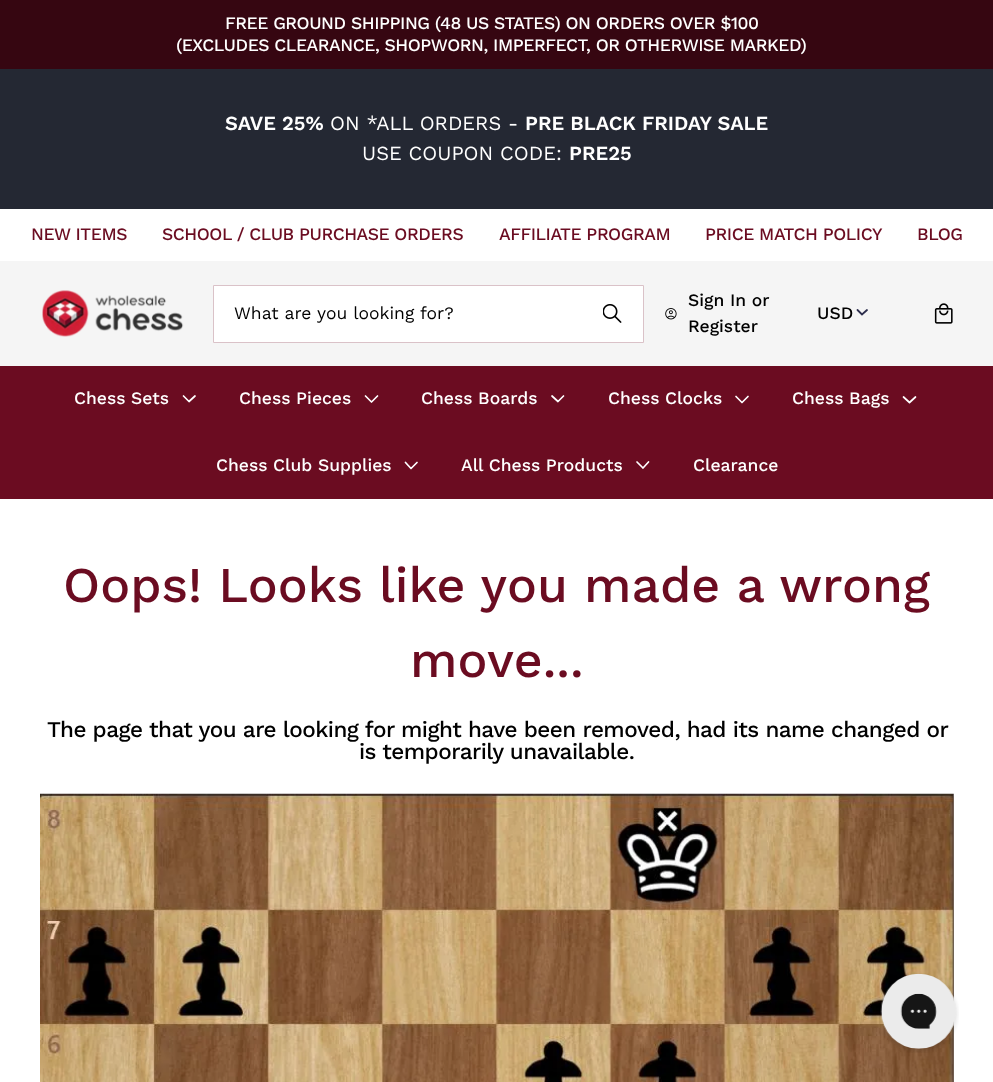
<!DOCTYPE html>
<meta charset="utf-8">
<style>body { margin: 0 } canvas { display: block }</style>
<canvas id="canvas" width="993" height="1082"></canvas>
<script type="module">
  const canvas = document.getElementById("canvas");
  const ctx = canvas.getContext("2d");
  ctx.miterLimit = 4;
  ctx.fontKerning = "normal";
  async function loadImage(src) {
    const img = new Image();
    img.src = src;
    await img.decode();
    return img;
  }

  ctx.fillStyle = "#ffffff";
  ctx.fillRect(0, 0, 993, 1082);
  ctx.fillStyle = "#360611";
  ctx.fillRect(0, 0, 993, 69);
  ctx.letterSpacing = "-0.45px";
  ctx.font = "500 17.5px Work Sans";
  ctx.fillStyle = "#ffffff";
  ctx.fillText("FREE GROUND SHIPPING (48 US STATES) ON ORDERS OVER $100", 225, 29);
  ctx.fillText("(EXCLUDES CLEARANCE, SHOPWORN, IMPERFECT, OR OTHERWISE MARKED)", 176, 51);
  ctx.fillStyle = "#242833";
  ctx.fillRect(0, 69, 993, 140);
  ctx.letterSpacing = "0px";
  ctx.font = "600 20px Work Sans";
  ctx.fillStyle = "#ffffff";
  ctx.fillText("SAVE 25%", 225, 130);
  ctx.font = "20px Work Sans";
  ctx.fillText("ON *ALL ORDERS -", 330, 130);
  ctx.font = "600 20px Work Sans";
  ctx.fillText("PRE BLACK FRIDAY SALE", 525, 130);
  ctx.font = "20px Work Sans";
  ctx.fillText("USE COUPON CODE:", 362, 160);
  ctx.font = "600 20px Work Sans";
  ctx.fillText("PRE25", 569, 160);
  ctx.letterSpacing = "-0.45px";
  ctx.font = "500 17.5px Work Sans";
  ctx.fillStyle = "#6b0c21";
  ctx.fillText("NEW ITEMS", 31, 240);
  ctx.fillText("SCHOOL / CLUB PURCHASE ORDERS", 162, 240);
  ctx.fillText("AFFILIATE PROGRAM", 499, 240);
  ctx.fillText("PRICE MATCH POLICY", 705, 240);
  ctx.fillText("BLOG", 917, 240);
  ctx.fillStyle = "#f5f5f5";
  ctx.fillRect(0, 261, 993, 105);
  ctx.drawImage(await loadImage("img1.png"), 42, 290, 142, 47);
  ctx.fillStyle = "#ffffff";
  ctx.beginPath();
  ctx.rect(213.5, 285.5, 430, 57);
  ctx.fill();
  ctx.strokeStyle = "#dac2c8";
  ctx.stroke();
  ctx.letterSpacing = "0px";
  ctx.font = "17.5px Work Sans";
  ctx.fillStyle = "#000000";
  ctx.fillText("What are you looking for?", 234, 319);
  ctx.drawImage(await loadImage("img2.png"), 603, 304, 19, 19);
  ctx.drawImage(await loadImage("img3.png"), 665, 308, 12, 12);
  ctx.font = "500 17.5px Work Sans";
  ctx.fillText("Sign In or", 688, 306);
  ctx.fillText("Register", 688, 332);
  ctx.beginPath();
  ctx.moveTo(867, 310);
  ctx.lineTo(862, 314.5);
  ctx.lineTo(857.5, 310);
  ctx.strokeStyle = "#2d2e4d";
  ctx.lineWidth = 1.8;
  ctx.lineCap = "round";
  ctx.stroke();
  ctx.fillText("USD", 817, 319);
  ctx.drawImage(await loadImage("img4.png"), 934, 303, 19, 21);
  ctx.fillStyle = "#6b0c21";
  ctx.fillRect(0, 366, 993, 133);
  ctx.fillStyle = "#ffffff";
  ctx.fillText("Chess Sets", 74, 404);
  ctx.beginPath();
  ctx.moveTo(195, 396);
  ctx.lineTo(189, 401.5);
  ctx.lineTo(183.5, 396);
  ctx.strokeStyle = "#ffffff";
  ctx.lineWidth = 1.7;
  ctx.lineJoin = "round";
  ctx.stroke();
  ctx.fillText("Chess Pieces", 239, 404);
  ctx.beginPath();
  ctx.moveTo(377.5, 396);
  ctx.lineTo(371.5, 402);
  ctx.lineTo(365.5, 396);
  ctx.stroke();
  ctx.fillText("Chess Boards", 421, 404);
  ctx.beginPath();
  ctx.moveTo(563.5, 396);
  ctx.lineTo(558, 401.5);
  ctx.lineTo(552, 396);
  ctx.stroke();
  ctx.fillText("Chess Clocks", 608, 404);
  ctx.beginPath();
  ctx.moveTo(748, 396.5);
  ctx.lineTo(742, 402.5);
  ctx.lineTo(736, 396.5);
  ctx.stroke();
  ctx.fillText("Chess Bags", 792, 404);
  ctx.beginPath();
  ctx.moveTo(915.5, 397);
  ctx.lineTo(909.5, 402.5);
  ctx.lineTo(903.5, 397);
  ctx.stroke();
  ctx.fillText("Chess Club Supplies", 216, 471);
  ctx.beginPath();
  ctx.moveTo(417, 462.5);
  ctx.lineTo(411, 468.5);
  ctx.lineTo(405.5, 462.5);
  ctx.stroke();
  ctx.fillText("All Chess Products", 461, 471);
  ctx.beginPath();
  ctx.moveTo(648.5, 462);
  ctx.lineTo(643, 468);
  ctx.lineTo(637, 462);
  ctx.stroke();
  ctx.fillText("Clearance", 693, 471);
  ctx.font = "500 50px Work Sans";
  ctx.fillStyle = "#6b0c21";
  ctx.fillText("Oops! Looks like you made a wrong", 63, 602);
  ctx.fillText("move...", 410, 677);
  ctx.letterSpacing = "-0.55px";
  ctx.font = "500 22.5px Work Sans";
  ctx.fillStyle = "#000000";
  ctx.fillText("The page that you are looking for might have been removed, had its name changed or", 47, 737);
  ctx.fillText("is temporarily unavailable.", 359, 759);
  ctx.drawImage(await loadImage("img5.png"), 40, 793, 914, 289);
  ctx.drawImage(await loadImage("img6.png"), 879, 973, 80, 80);
</script>
